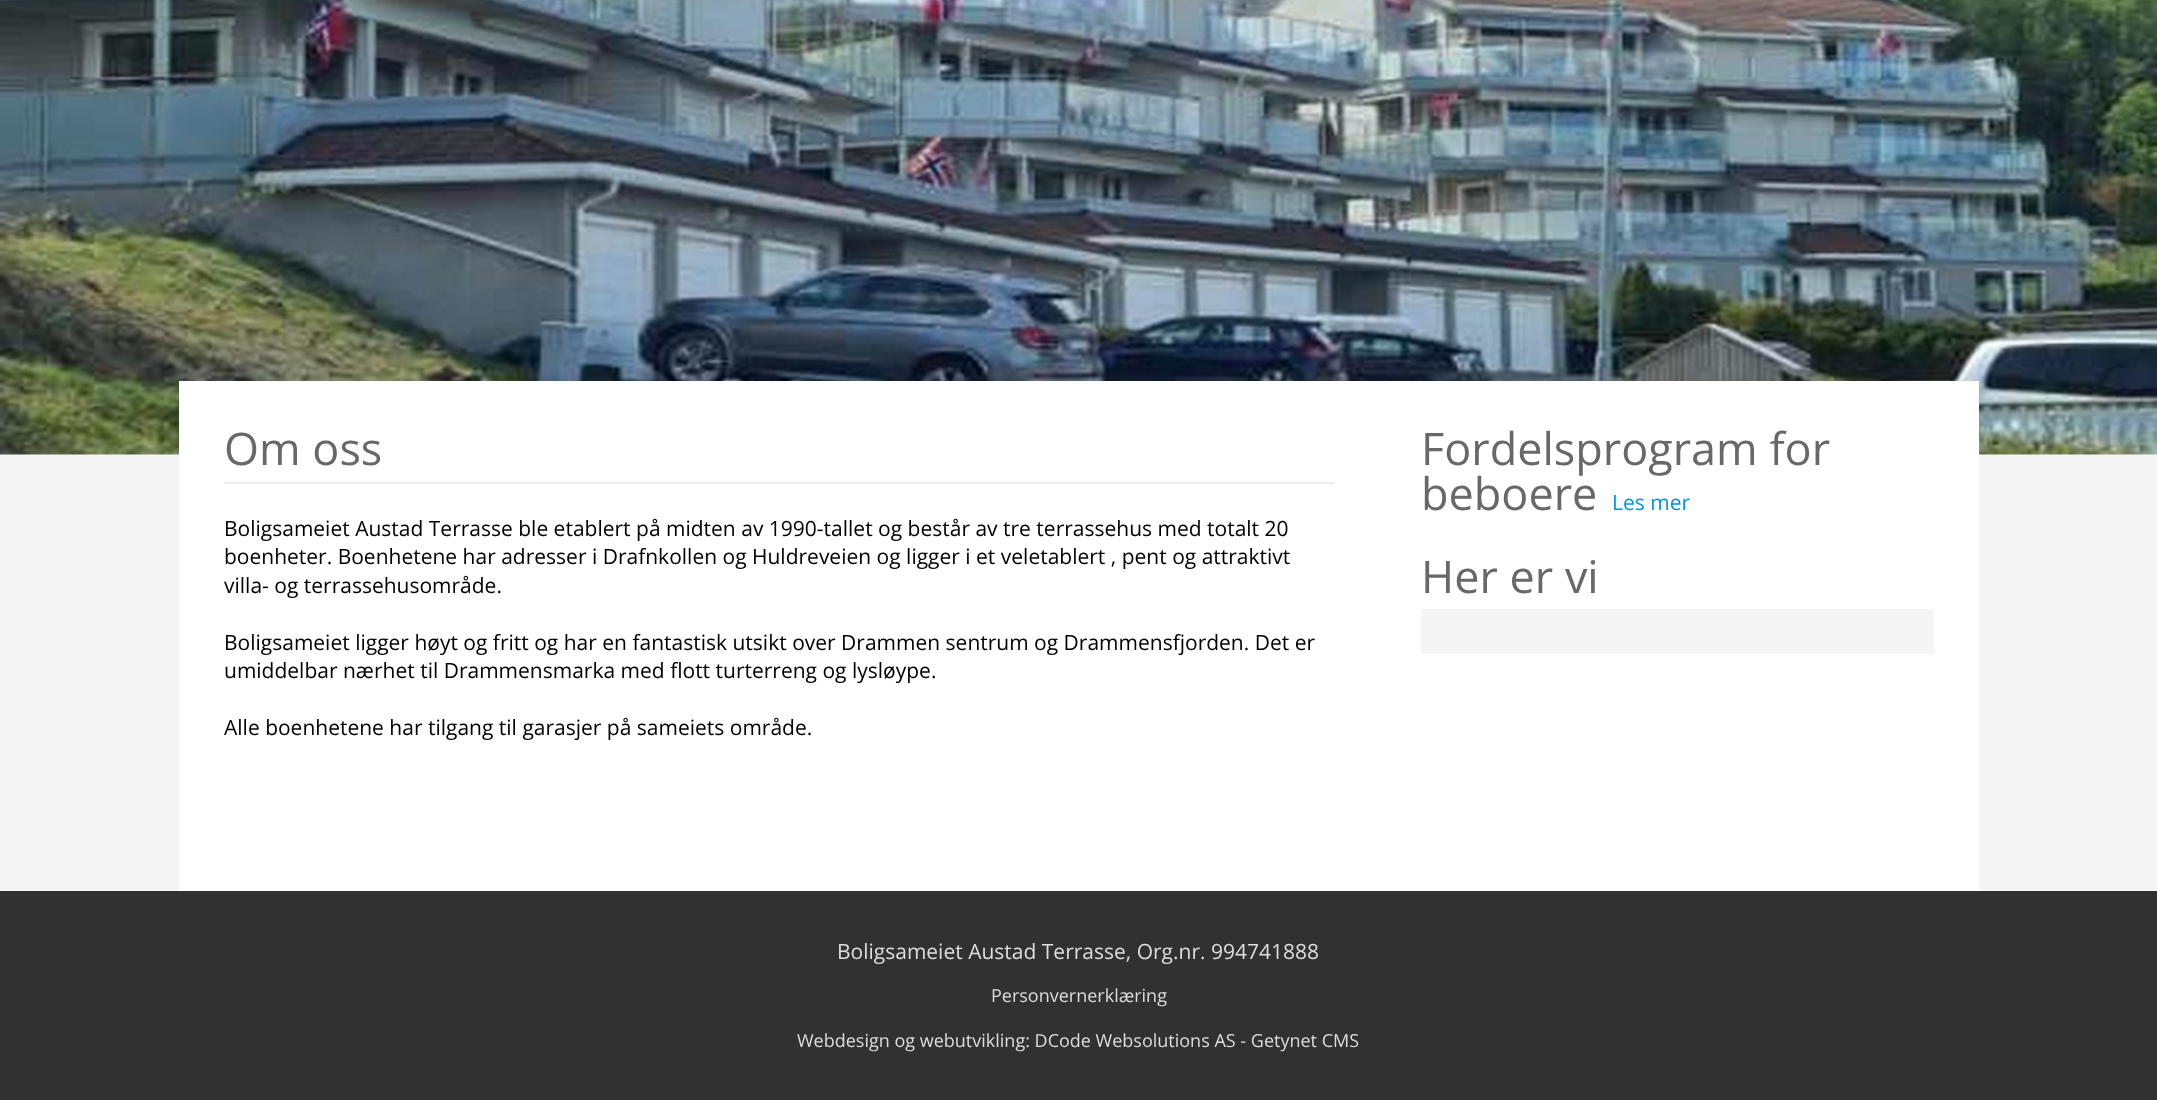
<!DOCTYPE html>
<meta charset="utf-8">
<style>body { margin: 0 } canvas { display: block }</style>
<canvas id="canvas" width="2157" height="1100"></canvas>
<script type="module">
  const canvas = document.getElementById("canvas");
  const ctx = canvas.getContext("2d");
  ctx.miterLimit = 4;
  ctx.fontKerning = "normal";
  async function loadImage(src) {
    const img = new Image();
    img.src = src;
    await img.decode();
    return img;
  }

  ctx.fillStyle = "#f5f5f5";
  ctx.fillRect(0, 0, 2157, 1100);
  ctx.drawImage(await loadImage("img1.png"), 0, 0, 2157, 455);
  ctx.fillStyle = "#ffffff";
  ctx.fillRect(179, 381, 1800, 510);
  ctx.fillStyle = "#efecec";
  ctx.fillRect(224, 482, 1111, 2);
  ctx.font = "45px Open Sans";
  ctx.fillStyle = "#686868";
  ctx.fillText("Om oss", 224, 465);
  ctx.font = "21px Open Sans";
  ctx.fillStyle = "#000000";
  ctx.fillText("Boligsameiet Austad Terrasse ble etablert på midten av 1990-tallet og består av tre terrassehus med totalt 20", 224, 536);
  ctx.fillText("boenheter. Boenhetene har adresser i Drafnkollen og Huldreveien og ligger i et veletablert , pent og attraktivt", 224, 564);
  ctx.fillText("villa- og terrassehusområde.", 224, 593);
  ctx.fillText("Boligsameiet ligger høyt og fritt og har en fantastisk utsikt over Drammen sentrum og Drammensfjorden. Det er", 224, 650);
  ctx.fillText("umiddelbar nærhet til Drammensmarka med flott turterreng og lysløype.", 224, 678);
  ctx.fillText("Alle boenhetene har tilgang til garasjer på sameiets område.", 224, 735);
  ctx.font = "45px Open Sans";
  ctx.fillStyle = "#686868";
  ctx.fillText("Fordelsprogram for", 1421, 465);
  ctx.fillText("beboere", 1421, 510);
  ctx.font = "21px Open Sans";
  ctx.fillStyle = "#0095e4";
  ctx.fillText("Les mer", 1612, 510);
  ctx.font = "45px Open Sans";
  ctx.fillStyle = "#686868";
  ctx.fillText("Her er vi", 1421, 593);
  ctx.fillStyle = "#f5f5f5";
  ctx.fillRect(1421, 609, 513, 45);
  ctx.fillStyle = "#313131";
  ctx.fillRect(0, 891, 2157, 209);
  ctx.font = "21px Open Sans";
  ctx.fillStyle = "#dddddd";
  ctx.fillText("Boligsameiet Austad Terrasse, Org.nr. 994741888", 837, 959);
  ctx.font = "18px Open Sans";
  ctx.fillText("Personvernerklæring", 991, 1002);
  ctx.fillText("Webdesign og webutvikling: DCode Websolutions AS - Getynet CMS", 797, 1047);
</script>
